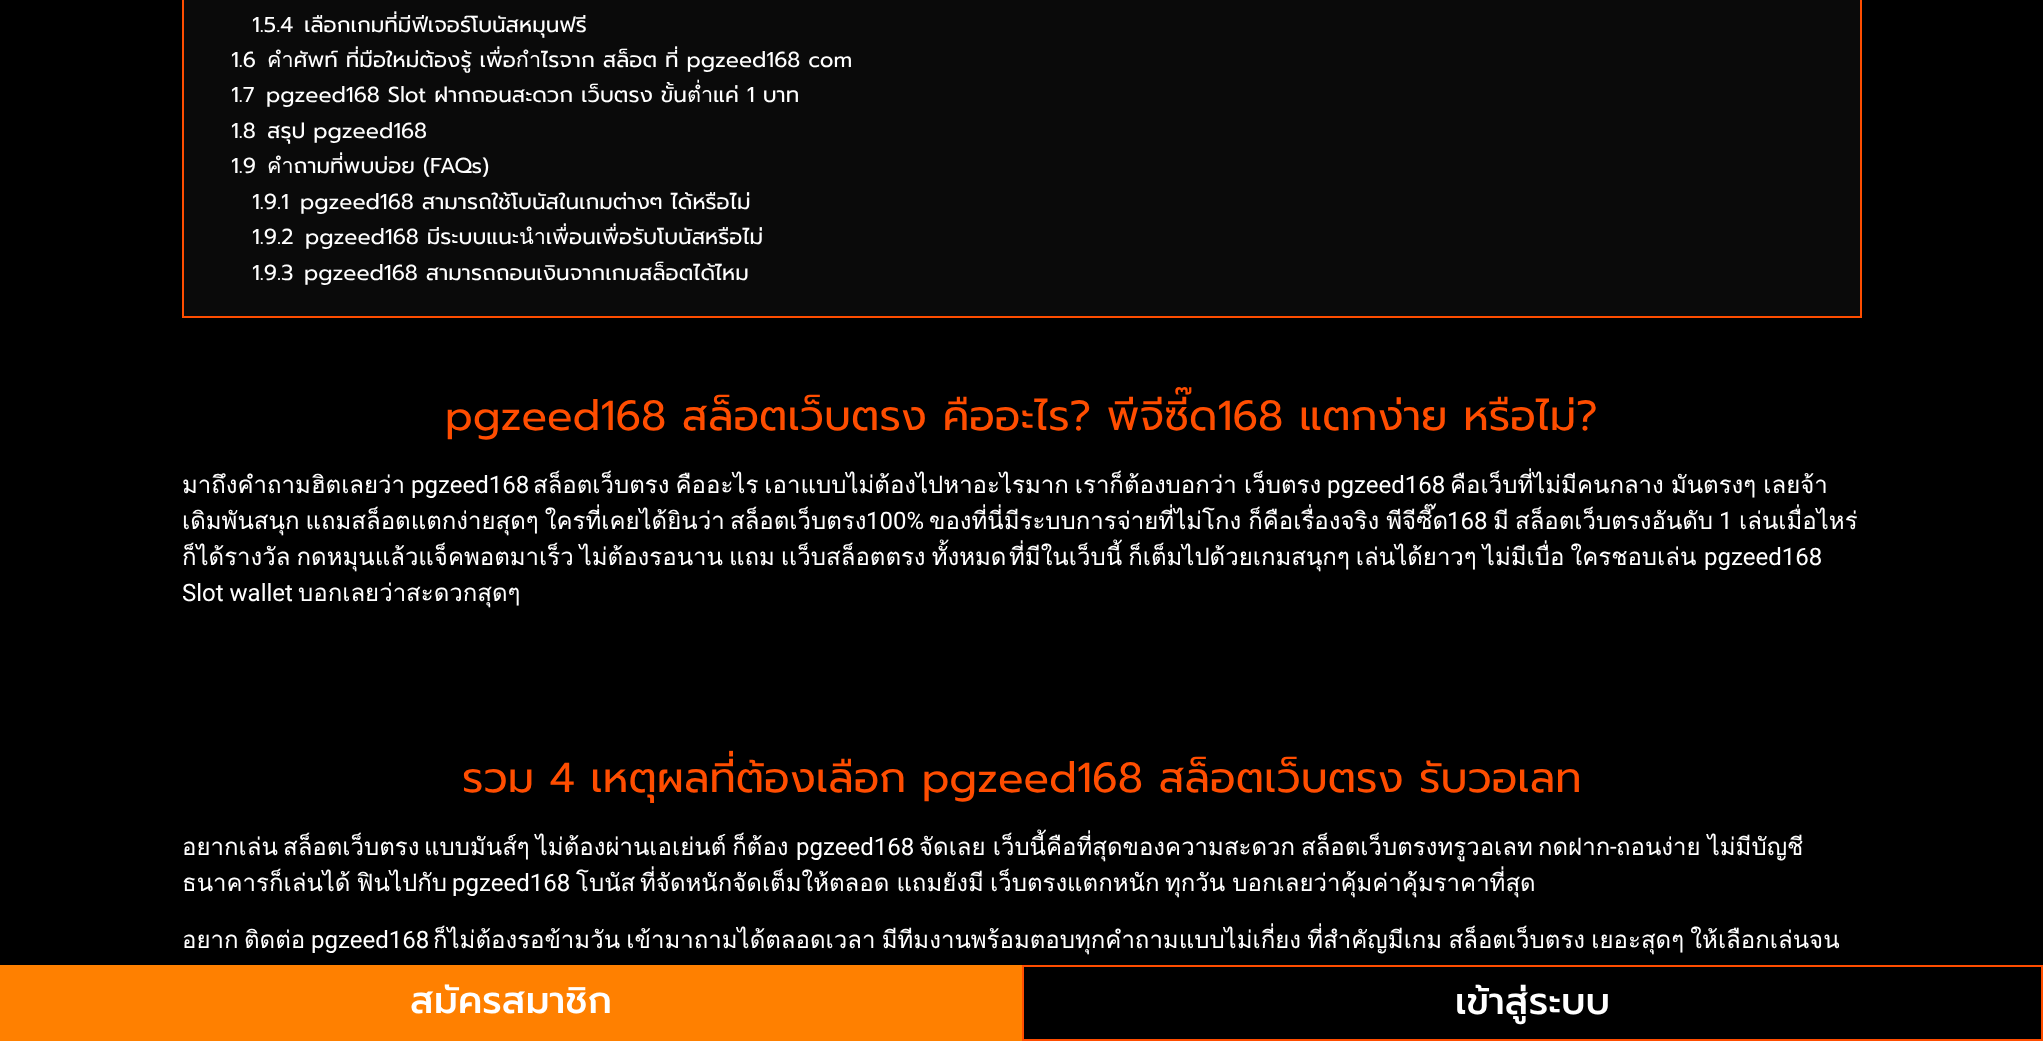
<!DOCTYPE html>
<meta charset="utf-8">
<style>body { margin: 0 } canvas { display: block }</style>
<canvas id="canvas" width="2043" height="1041"></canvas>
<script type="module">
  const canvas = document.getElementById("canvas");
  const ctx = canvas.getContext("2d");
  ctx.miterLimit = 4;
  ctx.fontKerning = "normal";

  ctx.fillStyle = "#000000";
  ctx.fillRect(0, 0, 2043, 1041);
  ctx.fillStyle = "#0a0a0a";
  ctx.beginPath();
  ctx.rect(183, -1, 1678, 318);
  ctx.fill();
  ctx.strokeStyle = "#ff4d00";
  ctx.lineWidth = 2;
  ctx.stroke();
  ctx.font = "21.6px Prompt";
  ctx.fillStyle = "#ffffff";
  ctx.fillText("1.5.4", 252, 32);
  ctx.fillText("เลือกเกมที่มีฟีเจอร์โบนัสหมุนฟรี", 304, 32);
  ctx.fillText("1.6", 231, 67);
  ctx.fillText("คำศัพท์ ที่มือใหม่ต้องรู้ เพื่อกำไรจาก สล็อต ที่ pgzeed168 com", 267, 67);
  ctx.fillText("1.7", 231, 102);
  ctx.fillText("pgzeed168 Slot ฝากถอนสะดวก เว็บตรง ขั้นต่ำแค่ 1 บาท", 266, 102);
  ctx.fillText("1.8", 231, 138);
  ctx.fillText("สรุป pgzeed168", 267, 138);
  ctx.fillText("1.9", 231, 173);
  ctx.fillText("คำถามที่พบบ่อย (FAQs)", 267, 173);
  ctx.fillText("1.9.1", 252, 209);
  ctx.fillText("pgzeed168 สามารถใช้โบนัสในเกมต่างๆ ได้หรือไม่", 300, 209);
  ctx.fillText("1.9.2", 252, 244);
  ctx.fillText("pgzeed168 มีระบบแนะนำเพื่อนเพื่อรับโบนัสหรือไม่", 305, 244);
  ctx.fillText("1.9.3", 252, 280);
  ctx.fillText("pgzeed168 สามารถถอนเงินจากเกมสล็อตได้ไหม", 304, 280);
  ctx.font = "42px Prompt";
  ctx.fillStyle = "#ff4d00";
  ctx.fillText("pgzeed168 สล็อตเว็บตรง คืออะไร? พีจีซี๊ด168 แตกง่าย หรือไม่?", 445, 430);
  ctx.font = "24px Loma";
  ctx.fillStyle = "#ffffff";
  ctx.fillText("มาถึงคำถามฮิตเลยว่า", 182, 493);
  ctx.font = "24px Roboto";
  ctx.fillText("pgzeed168", 411, 493);
  ctx.wordSpacing = "-2px";
  ctx.font = "24px Loma";
  ctx.fillText("สล็อตเว็บตรง คืออะไร เอาแบบไม่ต้องไปหาอะไรมาก เราก็ต้องบอกว่า", 533, 493);
  ctx.wordSpacing = "0px";
  ctx.fillText("เว็บตรง", 1244, 493);
  ctx.font = "24px Roboto";
  ctx.fillText("pgzeed168", 1327, 493);
  ctx.wordSpacing = "-1px";
  ctx.font = "24px Loma";
  ctx.fillText("คือเว็บที่ไม่มีคนกลาง มันตรงๆ เลยจ้า", 1450, 493);
  ctx.wordSpacing = "-2px";
  ctx.fillText("เดิมพันสนุก แถมสล็อตแตกง่ายสุดๆ ใครที่เคยได้ยินว่า", 182, 529);
  ctx.wordSpacing = "0px";
  ctx.fillText("สล็อตเว็บตรง", 730, 529);
  ctx.font = "24px Roboto";
  ctx.fillText("100%", 866, 529);
  ctx.wordSpacing = "-1px";
  ctx.font = "24px Loma";
  ctx.fillText("ของที่นี่มีระบบการจ่ายที่ไม่โกง ก็คือเรื่องจริง พีจีซี๊ด", 929, 529);
  ctx.wordSpacing = "0px";
  ctx.font = "24px Roboto";
  ctx.fillText("168", 1447, 529);
  ctx.font = "24px Loma";
  ctx.fillText("มี", 1493, 529);
  ctx.fillText("สล็อตเว็บตรงอันดับ", 1515, 529);
  ctx.font = "24px Roboto";
  ctx.fillText("1", 1719, 529);
  ctx.font = "24px Loma";
  ctx.fillText("เล่นเมื่อไหร่", 1739, 529);
  ctx.wordSpacing = "-2px";
  ctx.fillText("ก็ได้รางวัล กดหมุนแล้วแจ็คพอตมาเร็ว ไม่ต้องรอนาน แถม เเว็บสล็อตตรง ทั้งหมด", 182, 565);
  ctx.fillText("ที่มีในเว็บนี้ ก็เต็มไปด้วยเกมสนุกๆ เล่นได้ยาวๆ ไม่มีเบื่อ ใครชอบเล่น", 1009, 565);
  ctx.wordSpacing = "0px";
  ctx.font = "24px Roboto";
  ctx.fillText("pgzeed168", 1704, 565);
  ctx.fillText("Slot wallet", 182, 601);
  ctx.font = "24px Loma";
  ctx.fillText("บอกเลยว่าสะดวกสุดๆ", 298, 601);
  ctx.font = "42px Prompt";
  ctx.fillStyle = "#ff4d00";
  ctx.fillText("รวม 4 เหตุผลที่ต้องเลือก pgzeed168 สล็อตเว็บตรง รับวอเลท", 462, 792);
  ctx.font = "24px Loma";
  ctx.fillStyle = "#ffffff";
  ctx.fillText("อยากเล่น", 182, 855);
  ctx.fillText("สล็อตเว็บตรง", 283, 855);
  ctx.wordSpacing = "-2px";
  ctx.fillText("แบบมันส์ๆ ไม่ต้องผ่านเอเย่นต์ ก็ต้อง", 424, 855);
  ctx.wordSpacing = "0px";
  ctx.font = "24px Roboto";
  ctx.fillText("pgzeed168", 796, 855);
  ctx.wordSpacing = "-1px";
  ctx.font = "24px Loma";
  ctx.fillText("จัดเลย เว็บนี้คือที่สุดของความสะดวก", 919, 855);
  ctx.wordSpacing = "0px";
  ctx.fillText("สล็อตเว็บตรงทรูวอเลท", 1301, 855);
  ctx.fillText("กดฝาก", 1538, 855);
  ctx.font = "24px Roboto";
  ctx.fillText("-", 1610, 855);
  ctx.wordSpacing = "-1px";
  ctx.font = "24px Loma";
  ctx.fillText("ถอนง่าย ไม่มีบัญชี", 1616, 855);
  ctx.wordSpacing = "-2px";
  ctx.fillText("ธนาคารก็เล่นได้ ฟินไปกับ", 182, 891);
  ctx.wordSpacing = "0px";
  ctx.font = "24px Roboto";
  ctx.fillText("pgzeed168", 452, 891);
  ctx.font = "24px Loma";
  ctx.fillText("โบนัส", 576, 891);
  ctx.wordSpacing = "-1px";
  ctx.fillText("ที่จัดหนักจัดเต็มให้ตลอด แถมยังมี", 640, 891);
  ctx.wordSpacing = "0px";
  ctx.fillText("เว็บตรงแตกหนัก", 990, 891);
  ctx.wordSpacing = "-1px";
  ctx.fillText("ทุกวัน บอกเลยว่าคุ้มค่าคุ้มราคาที่สุด", 1165, 891);
  ctx.wordSpacing = "0px";
  ctx.fillText("อยาก", 182, 948);
  ctx.fillText("ติดต่อ", 244, 948);
  ctx.font = "24px Roboto";
  ctx.fillText("pgzeed168", 311, 948);
  ctx.wordSpacing = "-1.75px";
  ctx.font = "24px Loma";
  ctx.fillText("ก็ไม่ต้องรอข้ามวัน เข้ามาถามได้ตลอดเวลา มีทีมงานพร้อมตอบทุกคำถามแบบไม่เกี่ยง ที่สำคัญมีเกม สล็อตเว็บตรง เยอะสุดๆ ให้เลือกเล่นจน", 433, 948);
  ctx.fillStyle = "#ff8000";
  ctx.fillRect(0, 965, 1022, 76);
  ctx.wordSpacing = "0px";
  ctx.font = "500 37.5px Prompt";
  ctx.fillStyle = "#ffffff";
  ctx.fillText("สมัครสมาชิก", 410, 1013);
  ctx.strokeRect(1023, 966, 1019, 74);
  ctx.fillText("เข้าสู่ระบบ", 1455, 1014);
</script>
